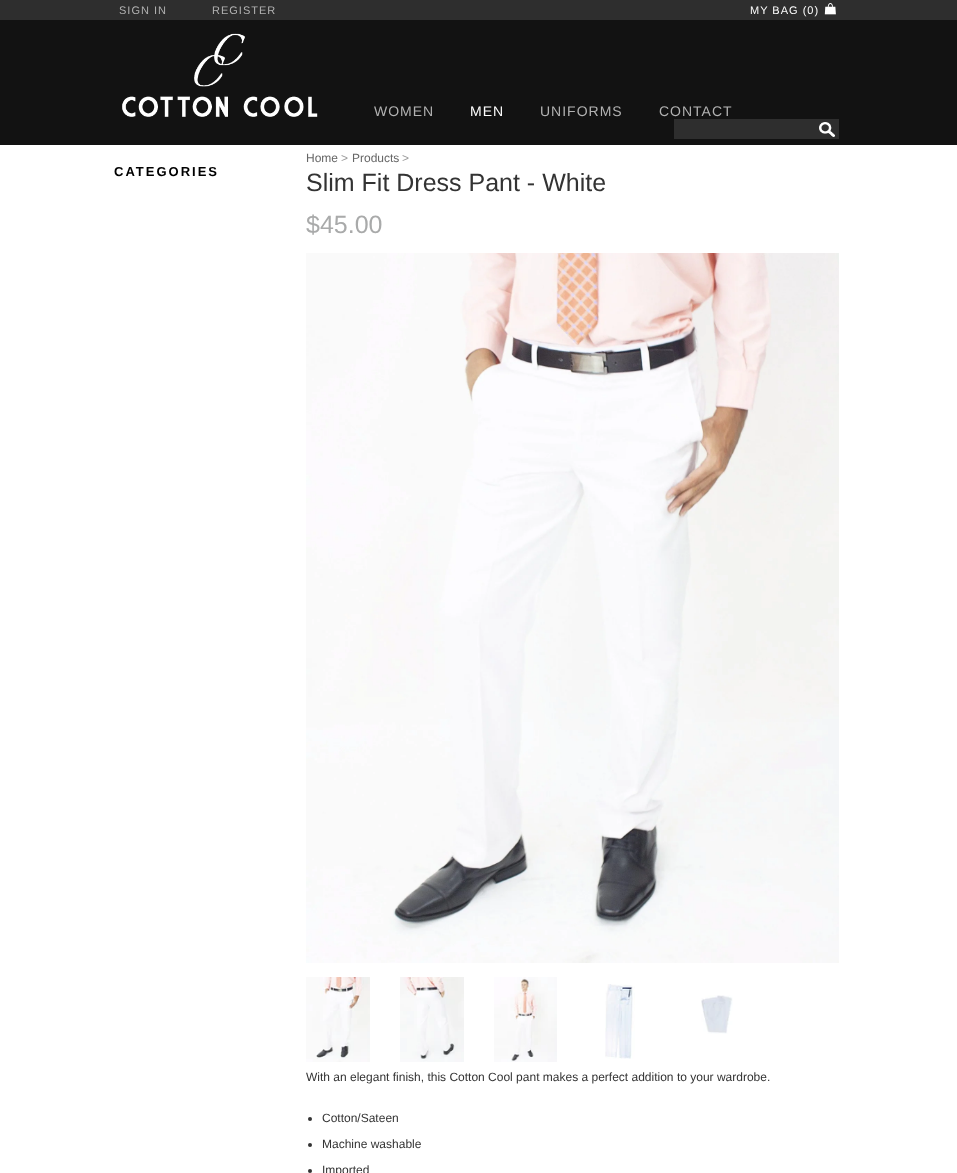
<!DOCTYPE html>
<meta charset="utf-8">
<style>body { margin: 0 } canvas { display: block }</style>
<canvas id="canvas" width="957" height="1173"></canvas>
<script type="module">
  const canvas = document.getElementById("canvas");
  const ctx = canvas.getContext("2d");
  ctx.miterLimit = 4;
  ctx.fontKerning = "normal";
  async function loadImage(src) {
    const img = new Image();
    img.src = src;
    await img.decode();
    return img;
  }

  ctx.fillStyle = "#ffffff";
  ctx.fillRect(0, 0, 957, 1173);
  ctx.fillStyle = "#2e2e2e";
  ctx.fillRect(0, 0, 957, 20);
  ctx.letterSpacing = "1px";
  ctx.font = "11px Liberation Sans";
  ctx.fillStyle = "#b2b2b2";
  ctx.fillText("SIGN IN", 119, 14);
  ctx.fillText("REGISTER", 212, 14);
  ctx.fillStyle = "#ffffff";
  ctx.fillText("MY BAG (0)", 750, 14);
  ctx.drawImage(await loadImage("img1.png"), 824, 3, 12, 12);
  ctx.fillStyle = "#121212";
  ctx.fillRect(0, 20, 957, 125);
  ctx.drawImage(await loadImage("img2.png"), 122, 33, 196, 84);
  ctx.font = "14px Liberation Sans";
  ctx.fillStyle = "#b2b2b2";
  ctx.fillText("WOMEN", 374, 116);
  ctx.fillStyle = "#ffffff";
  ctx.fillText("MEN", 470, 116);
  ctx.fillStyle = "#b2b2b2";
  ctx.fillText("UNIFORMS", 540, 116);
  ctx.fillText("CONTACT", 659, 116);
  ctx.fillStyle = "#2e2e2e";
  ctx.fillRect(674, 119, 165, 20);
  ctx.drawImage(await loadImage("img3.png"), 819, 122, 16, 15);
  ctx.letterSpacing = "2px";
  ctx.font = "bold 13px Liberation Sans";
  ctx.fillStyle = "#000000";
  ctx.fillText("CATEGORIES", 114, 176);
  ctx.letterSpacing = "0px";
  ctx.font = "12px Liberation Sans";
  ctx.fillStyle = "#666666";
  ctx.fillText("Home", 306, 162);
  ctx.fillStyle = "#999999";
  ctx.fillText(">", 341, 162);
  ctx.fillStyle = "#666666";
  ctx.fillText("Products", 352, 162);
  ctx.fillStyle = "#999999";
  ctx.fillText(">", 402, 162);
  ctx.font = "25px Liberation Sans";
  ctx.fillStyle = "#333333";
  ctx.fillText("Slim Fit Dress Pant - White", 306, 191);
  ctx.fillStyle = "#a9aaaa";
  ctx.fillText("$45.00", 306, 233);
  ctx.drawImage(await loadImage("img4.png"), 306, 253, 533, 710);
  ctx.drawImage(await loadImage("img5.png"), 306, 977, 64, 85);
  ctx.drawImage(await loadImage("img6.png"), 400, 977, 64, 85);
  ctx.drawImage(await loadImage("img7.png"), 494, 977, 63, 85);
  ctx.drawImage(await loadImage("img8.png"), 605, 984, 30, 75);
  ctx.drawImage(await loadImage("img9.png"), 701, 995, 32, 39);
  ctx.font = "12px Liberation Sans";
  ctx.fillStyle = "#333333";
  ctx.fillText("With an elegant finish, this Cotton Cool pant makes a perfect addition to your wardrobe.", 306, 1081);
  ctx.beginPath();
  ctx.arc(310, 1119, 2, 0, Math.PI * 2);
  ctx.fill();
  ctx.fillText("Cotton/Sateen", 322, 1122);
  ctx.beginPath();
  ctx.arc(310, 1145, 2, 0, Math.PI * 2);
  ctx.fill();
  ctx.fillText("Machine washable", 322, 1148);
  ctx.beginPath();
  ctx.arc(310, 1171, 2, 0, Math.PI * 2);
  ctx.fill();
  ctx.fillText("Imported", 322, 1174);
</script>
